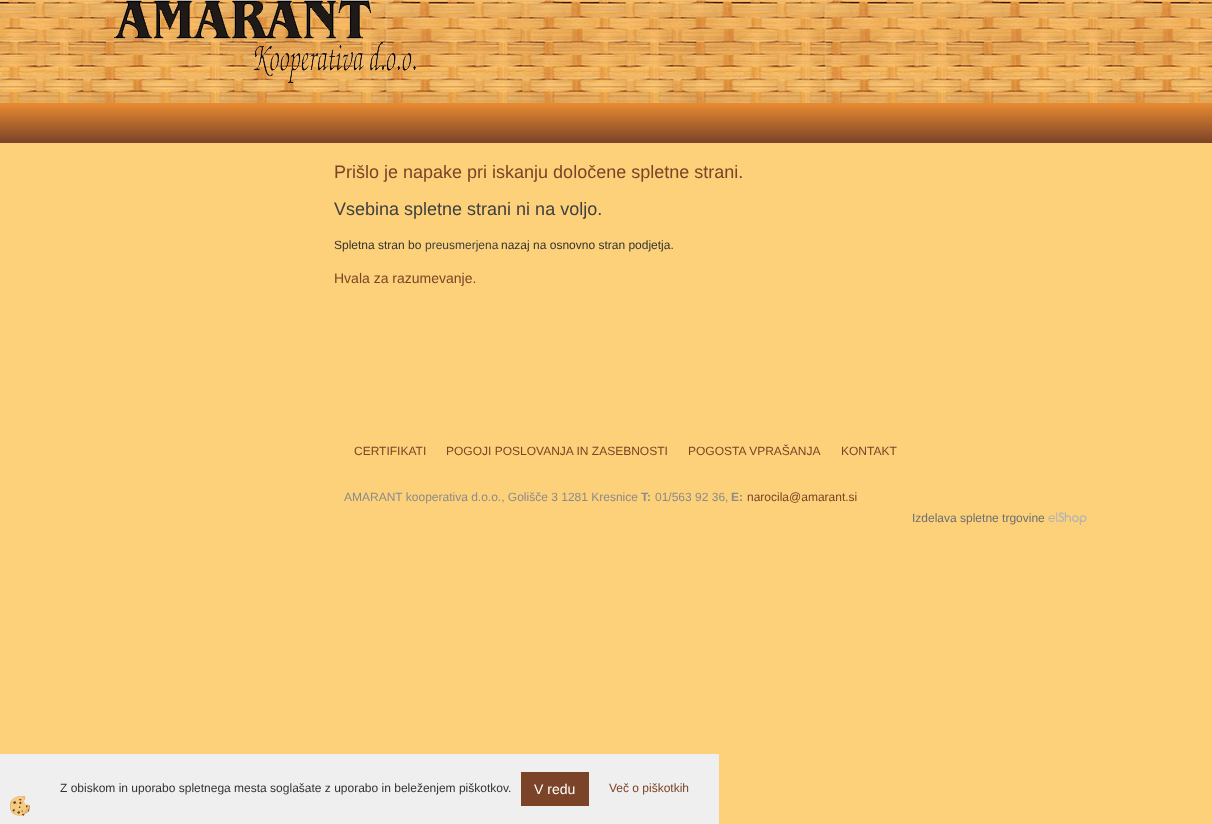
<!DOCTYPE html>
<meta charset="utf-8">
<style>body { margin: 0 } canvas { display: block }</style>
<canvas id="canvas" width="1212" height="824"></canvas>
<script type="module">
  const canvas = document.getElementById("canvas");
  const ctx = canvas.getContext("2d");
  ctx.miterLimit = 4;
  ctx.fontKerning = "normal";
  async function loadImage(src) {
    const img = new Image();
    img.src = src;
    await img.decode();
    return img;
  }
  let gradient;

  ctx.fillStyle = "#fcd17a";
  ctx.fillRect(0, 0, 1212, 824);
  ctx.drawImage(await loadImage("img1.png"), 0, 0, 1212, 103);
  ctx.drawImage(await loadImage("img2.png"), 114, 0, 302, 83);
  gradient = ctx.createLinearGradient(606, 103, 606, 143);
  gradient.addColorStop(0, "#e98b31");
  gradient.addColorStop(1, "#7b4328");
  ctx.fillStyle = gradient;
  ctx.fillRect(0, 103, 1212, 40);
  ctx.font = "18px Liberation Sans";
  ctx.fillStyle = "#7b4328";
  ctx.fillText("Prišlo je napake pri iskanju določene spletne strani.", 334, 178);
  ctx.fillStyle = "#404040";
  ctx.fillText("Vsebina spletne strani ni na voljo.", 334, 215);
  ctx.font = "12px Liberation Sans";
  ctx.fillStyle = "#333333";
  ctx.fillText("Spletna stran bo", 334, 249);
  ctx.fillStyle = "#404040";
  ctx.fillText("preusmerjena", 425, 249);
  ctx.fillStyle = "#333333";
  ctx.fillText("nazaj na osnovno stran podjetja.", 501, 249);
  ctx.font = "14px Liberation Sans";
  ctx.fillStyle = "#7b4328";
  ctx.fillText("Hvala za razumevanje.", 334, 283);
  ctx.font = "12px Liberation Sans";
  ctx.fillText("CERTIFIKATI", 354, 455);
  ctx.fillText("POGOJI POSLOVANJA IN ZASEBNOSTI", 446, 455);
  ctx.fillText("POGOSTA VPRAŠANJA", 688, 455);
  ctx.fillText("KONTAKT", 841, 455);
  ctx.fillStyle = "#8b8b8b";
  ctx.fillText("AMARANT kooperativa d.o.o., Golišče 3 1281 Kresnice", 344, 501);
  ctx.font = "bold 12px Liberation Sans";
  ctx.fillText("T:", 641, 501);
  ctx.font = "12px Liberation Sans";
  ctx.fillText("01/563 92 36,", 655, 501);
  ctx.font = "bold 12px Liberation Sans";
  ctx.fillText("E:", 731, 501);
  ctx.font = "12px Liberation Sans";
  ctx.fillStyle = "#7b4328";
  ctx.fillText("narocila@amarant.si", 747, 501);
  ctx.fillStyle = "#6d6e71";
  ctx.fillText("Izdelava spletne trgovine", 912, 522);
  ctx.drawImage(await loadImage("img3.png"), 1048, 512, 39, 13);
  ctx.fillStyle = "#efefef";
  ctx.fillRect(0, 754, 719, 70);
  ctx.fillStyle = "#333333";
  ctx.fillText("Z obiskom in uporabo spletnega mesta soglašate z uporabo in beleženjem piškotkov.", 60, 792);
  ctx.fillStyle = "#7b4328";
  ctx.fillRect(521, 772, 68, 34);
  ctx.font = "14px Liberation Sans";
  ctx.fillStyle = "#ffffff";
  ctx.fillText("V redu", 534, 794);
  ctx.font = "12px Liberation Sans";
  ctx.fillStyle = "#7b4328";
  ctx.fillText("Več o piškotkih", 609, 792);
  ctx.drawImage(await loadImage("img4.png"), 10, 796, 20, 20);
</script>
